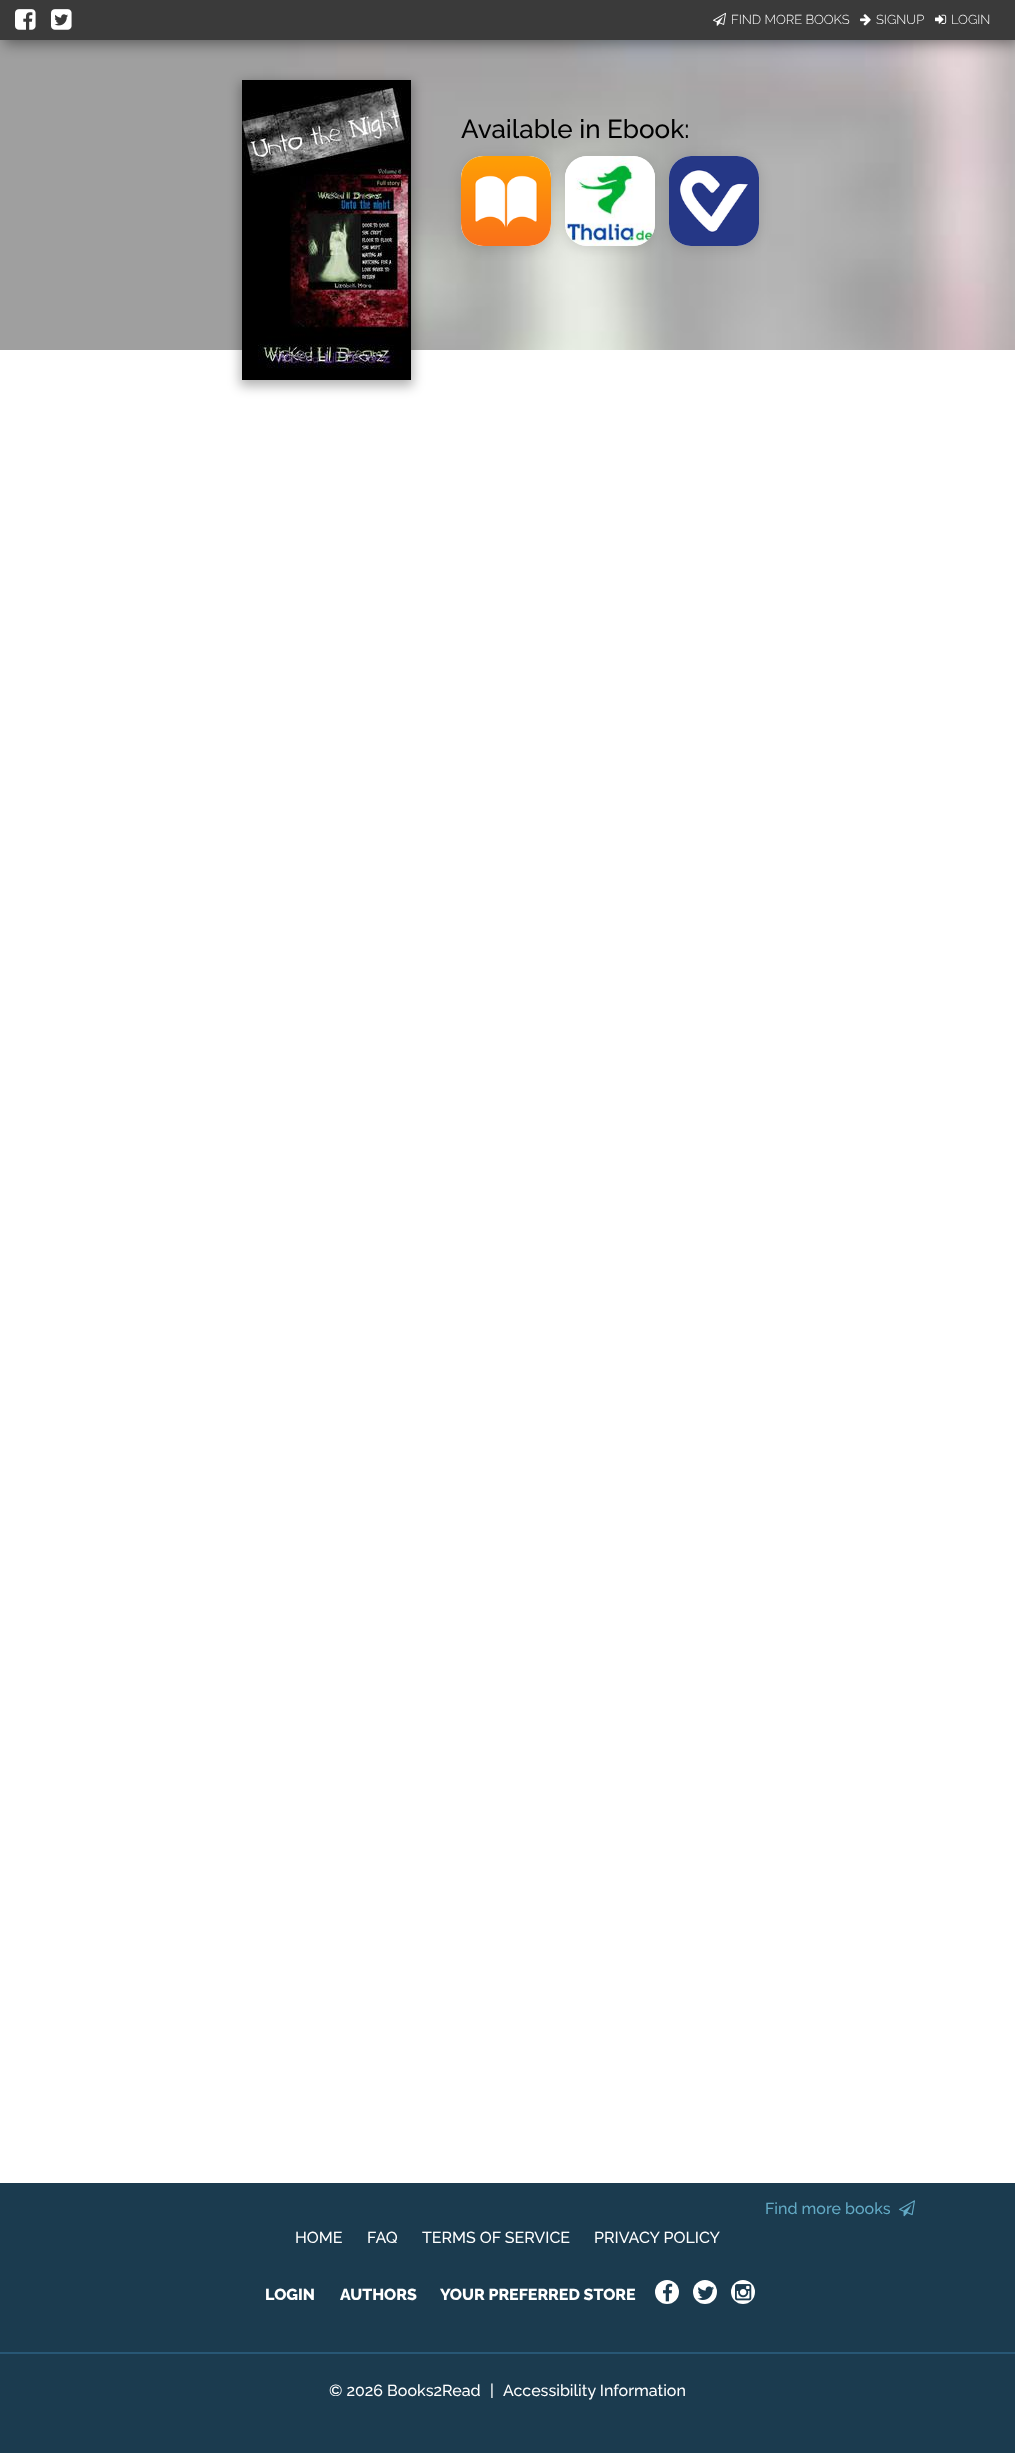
<!DOCTYPE html>
<meta charset="utf-8">
<style>body { margin: 0 } canvas { display: block }</style>
<canvas id="canvas" width="1015" height="2453"></canvas>
<script type="module">
  const canvas = document.getElementById("canvas");
  const ctx = canvas.getContext("2d");
  ctx.miterLimit = 4;
  ctx.fontKerning = "normal";
  async function loadImage(src) {
    const img = new Image();
    img.src = src;
    await img.decode();
    return img;
  }

  ctx.fillStyle = "#ffffff";
  ctx.fillRect(0, 0, 1015, 2453);
  ctx.drawImage(await loadImage("img1.png"), 0, 40, 1015, 310);
  ctx.fillStyle = "rgba(0, 0, 0, 0.4)";
  ctx.filter = "blur(7px)";
  ctx.beginPath();
  ctx.rect(4, 4, 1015, 40);
  ctx.fill();
  ctx.filter = "none";
  ctx.fillStyle = "#3a3a3a";
  ctx.fillRect(0, 0, 1015, 40);
  ctx.drawImage(await loadImage("img2.png"), 15, 9, 21, 21);
  ctx.drawImage(await loadImage("img3.png"), 51, 9, 21, 21);
  ctx.drawImage(await loadImage("img4.png"), 713, 12, 13, 14);
  ctx.font = "300 13px Raleway";
  ctx.fillStyle = "#ffffff";
  ctx.fillText("FIND MORE BOOKS", 731, 24);
  ctx.drawImage(await loadImage("img5.png"), 860, 14, 11, 12);
  ctx.fillText("SIGNUP", 876, 24);
  ctx.drawImage(await loadImage("img6.png"), 935, 14, 12, 10);
  ctx.fillText("LOGIN", 951, 24);
  ctx.fillStyle = "rgba(0, 0, 0, 0.3)";
  ctx.filter = "blur(6px)";
  ctx.beginPath();
  ctx.rect(240, 82, 173, 304);
  ctx.fill();
  ctx.filter = "none";
  ctx.drawImage(await loadImage("img7.png"), 242, 80, 169, 300);
  ctx.fillStyle = "rgba(0, 0, 0, 0.1)";
  ctx.filter = "blur(6px)";
  ctx.beginPath();
  ctx.roundRect(459, 156, 94, 94, 24);
  ctx.fill();
  ctx.filter = "none";
  ctx.fillStyle = "#ffffff";
  ctx.beginPath();
  ctx.roundRect(461, 156, 90, 90, 22);
  ctx.fill();
  ctx.drawImage(await loadImage("img8.png"), 461, 156, 90, 90);
  ctx.fillStyle = "rgba(0, 0, 0, 0.1)";
  ctx.filter = "blur(6px)";
  ctx.beginPath();
  ctx.roundRect(563, 156, 94, 94, 24);
  ctx.fill();
  ctx.filter = "none";
  ctx.fillStyle = "#ffffff";
  ctx.beginPath();
  ctx.roundRect(565, 156, 90, 90, 22);
  ctx.fill();
  ctx.drawImage(await loadImage("img9.png"), 565, 156, 90, 90);
  ctx.fillStyle = "rgba(0, 0, 0, 0.1)";
  ctx.filter = "blur(6px)";
  ctx.beginPath();
  ctx.roundRect(667, 156, 94, 94, 24);
  ctx.fill();
  ctx.filter = "none";
  ctx.font = "500 26px Raleway";
  ctx.fillStyle = "#000000";
  ctx.fillText("Available in Ebook:", 461, 138);
  ctx.fillStyle = "#ffffff";
  ctx.beginPath();
  ctx.roundRect(669, 156, 90, 90, 22);
  ctx.fill();
  ctx.drawImage(await loadImage("img10.png"), 669, 156, 90, 90);
  ctx.fillStyle = "#1b3b4f";
  ctx.fillRect(0, 2183, 1015, 270);
  ctx.font = "500 16px Raleway";
  ctx.fillStyle = "#63aac5";
  ctx.fillText("Find more books", 765, 2214);
  ctx.drawImage(await loadImage("img11.png"), 899, 2200, 16, 17);
  ctx.fillStyle = "#ffffff";
  ctx.fillText("HOME", 295, 2243);
  ctx.fillText("FAQ", 367, 2243);
  ctx.fillText("TERMS OF SERVICE", 422, 2243);
  ctx.fillText("PRIVACY POLICY", 594, 2243);
  ctx.font = "800 16px Raleway";
  ctx.fillText("LOGIN", 265, 2300);
  ctx.fillText("AUTHORS", 340, 2300);
  ctx.fillText("YOUR PREFERRED STORE", 440, 2300);
  ctx.beginPath();
  ctx.arc(667, 2292, 12, 0, Math.PI * 2);
  ctx.fill();
  ctx.drawImage(await loadImage("img12.png"), 663, 2283, 10, 19);
  ctx.beginPath();
  ctx.arc(705, 2292, 12, 0, Math.PI * 2);
  ctx.fill();
  ctx.drawImage(await loadImage("img13.png"), 697, 2286, 17, 14);
  ctx.beginPath();
  ctx.arc(743, 2292, 12, 0, Math.PI * 2);
  ctx.fill();
  ctx.drawImage(await loadImage("img14.png"), 735, 2284, 17, 17);
  ctx.fillStyle = "#285775";
  ctx.fillRect(0, 2352, 1015, 2);
  ctx.font = "500 16px Raleway";
  ctx.fillStyle = "#ffffff";
  ctx.fillText("© 2026 Books2Read", 329, 2396);
  ctx.fillText("|", 490, 2396);
  ctx.fillText("Accessibility Information", 503, 2396);
</script>
